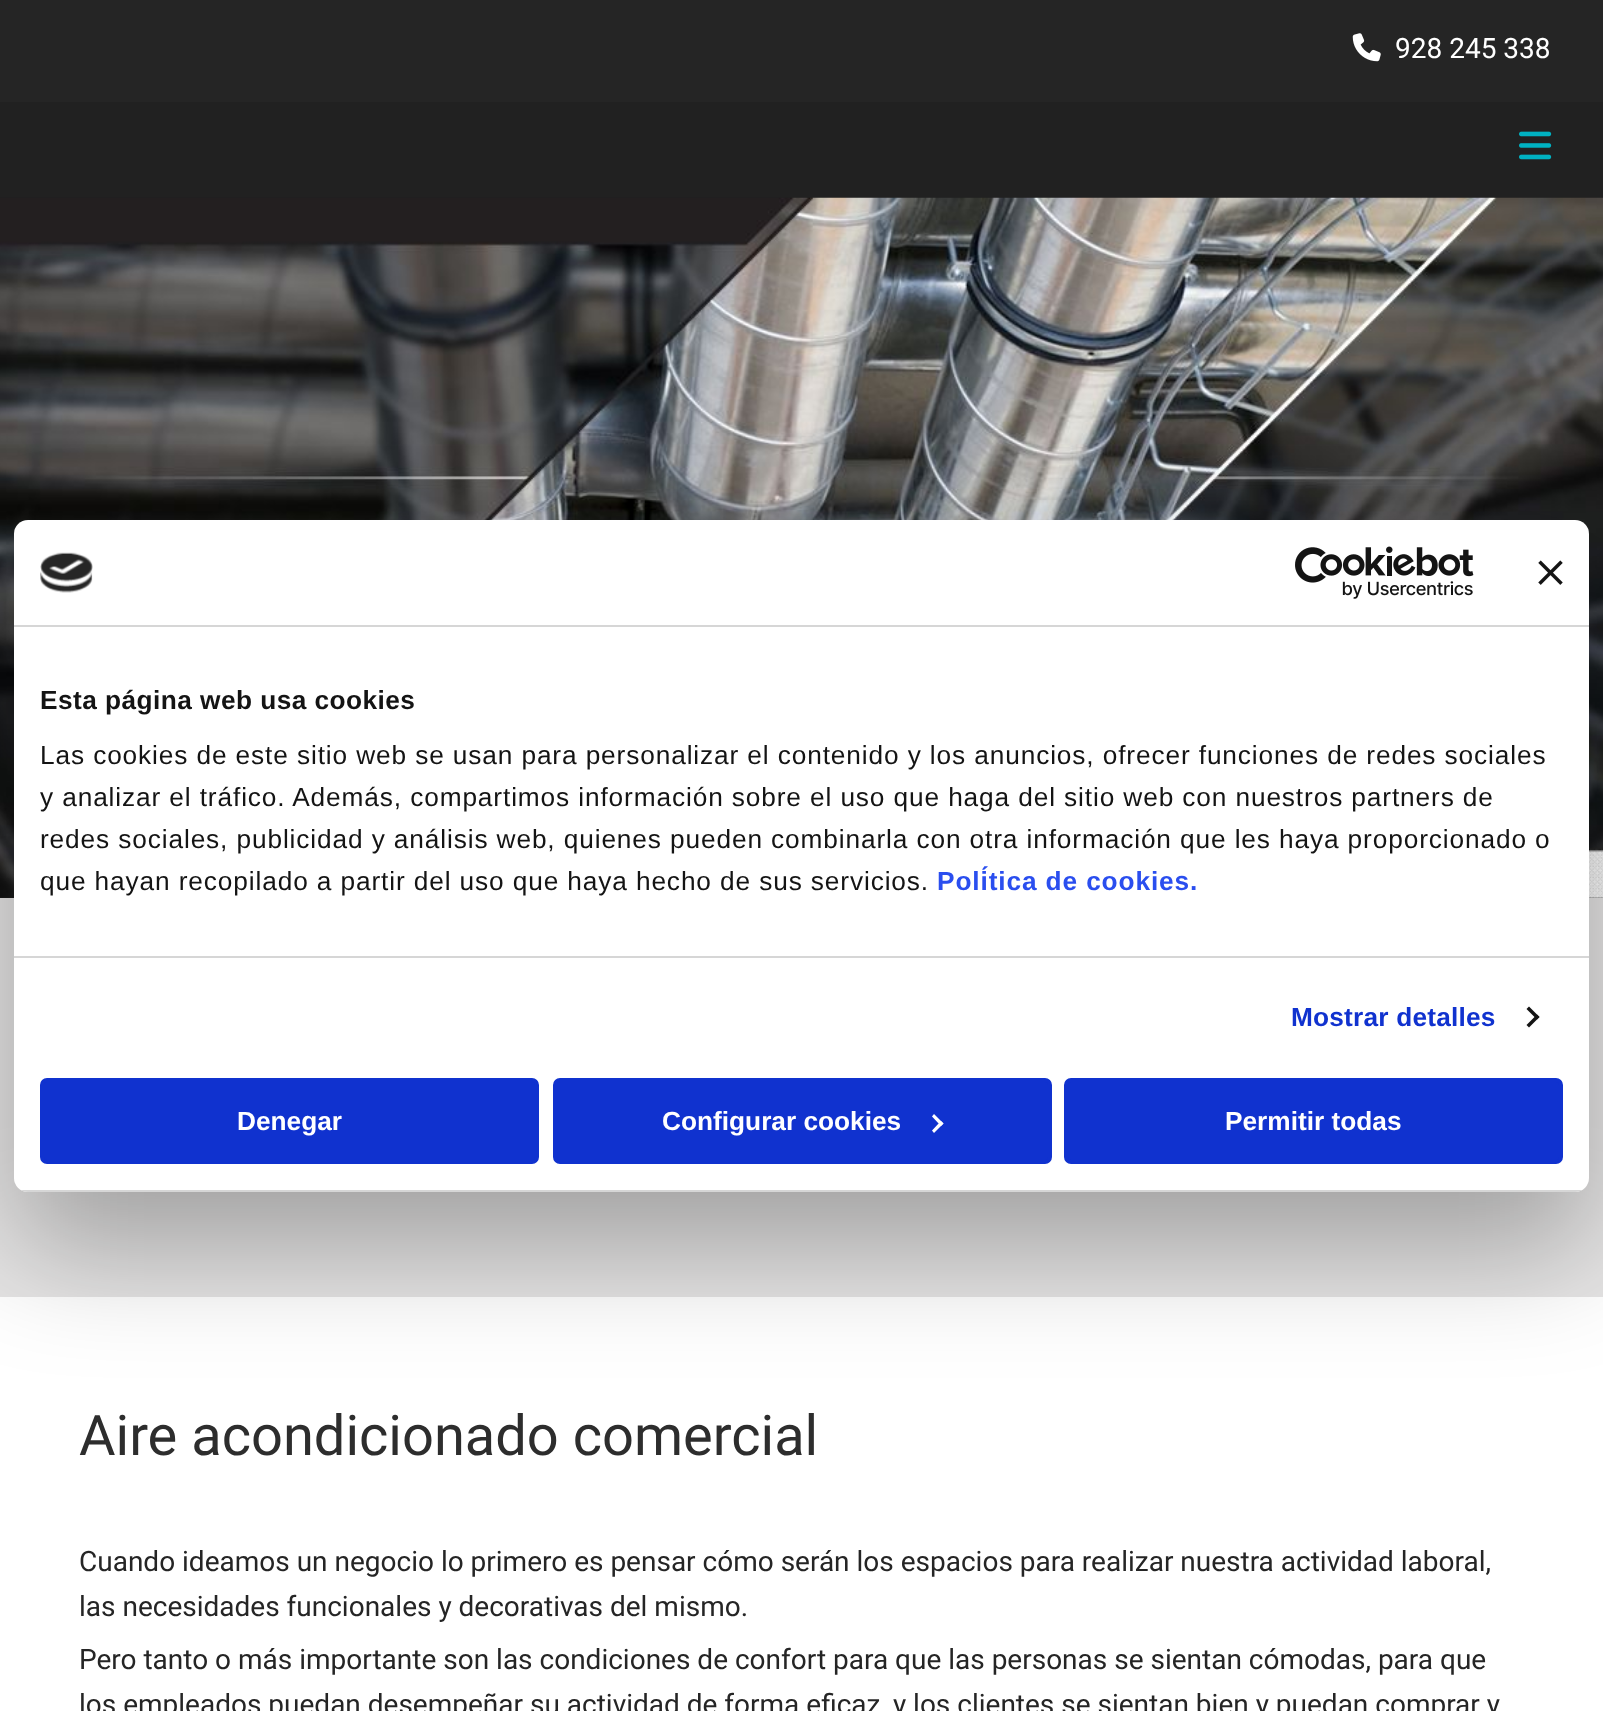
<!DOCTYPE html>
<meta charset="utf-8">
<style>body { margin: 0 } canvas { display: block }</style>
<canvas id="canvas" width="1603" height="1711"></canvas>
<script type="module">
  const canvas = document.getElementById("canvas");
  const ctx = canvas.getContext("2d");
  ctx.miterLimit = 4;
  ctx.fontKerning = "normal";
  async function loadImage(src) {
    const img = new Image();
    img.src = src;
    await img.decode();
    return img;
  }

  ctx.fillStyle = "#252525";
  ctx.fillRect(0, 0, 1603, 1711);
  ctx.drawImage(await loadImage("img1.png"), 1352, 33, 29, 29);
  ctx.font = "28px Roboto";
  ctx.fillStyle = "#ffffff";
  ctx.fillText("928 245 338", 1395, 58);
  ctx.fillStyle = "#212121";
  ctx.fillRect(0, 102, 1603, 96);
  ctx.drawImage(await loadImage("img2.png"), 1519, 131, 33, 29);
  ctx.drawImage(await loadImage("img3.png"), 0, 197, 1603, 701);
  ctx.fillStyle = "#e6e5e5";
  ctx.fillRect(0, 898, 1603, 399);
  ctx.fillStyle = "#ffffff";
  ctx.fillRect(0, 1297, 1603, 414);
  ctx.font = "56px Roboto";
  ctx.fillStyle = "#2d2d2d";
  ctx.fillText("Aire acondicionado comercial", 79, 1455);
  ctx.font = "28px Roboto";
  ctx.fillStyle = "#252525";
  ctx.fillText("Cuando ideamos un negocio lo primero es pensar cómo serán los espacios para realizar nuestra actividad laboral,", 79, 1571);
  ctx.fillText("las necesidades funcionales y decorativas del mismo.", 79, 1616);
  ctx.fillText("Pero tanto o más importante son las condiciones de confort para que las personas se sientan cómodas, para que", 79, 1669);
  ctx.fillText("los empleados puedan desempeñar su actividad de forma eficaz, y los clientes se sientan bien y puedan comprar y", 79, 1714);
  ctx.fillStyle = "rgba(0, 0, 0, 0.3)";
  ctx.filter = "blur(59.5px)";
  ctx.beginPath();
  ctx.roundRect(14, 576, 1575, 672, 14);
  ctx.fill();
  ctx.filter = "none";
  ctx.fillStyle = "#ffffff";
  ctx.beginPath();
  ctx.roundRect(14, 520, 1575, 672, 14);
  ctx.fill();
  ctx.fillStyle = "#d6d6d6";
  ctx.fillRect(14, 625, 1575, 2);
  ctx.drawImage(await loadImage("img4.png"), 40, 552, 53, 41);
  ctx.drawImage(await loadImage("img5.png"), 1295, 546, 179, 53);
  ctx.drawImage(await loadImage("img6.png"), 1538, 560, 25, 25);
  ctx.fillRect(14, 956, 1575, 2);
  ctx.letterSpacing = "0.45px";
  ctx.font = "bold 26.25px Liberation Sans";
  ctx.fillStyle = "#141414";
  ctx.fillText("Esta página web usa cookies", 40, 709);
  ctx.letterSpacing = "0.88px";
  ctx.font = "26.25px Liberation Sans";
  ctx.fillText("Las cookies de este sitio web se usan para personalizar el contenido y los anuncios, ofrecer funciones de redes sociales", 40, 764);
  ctx.fillText("y analizar el tráfico. Además, compartimos información sobre el uso que haga del sitio web con nuestros partners de", 40, 806);
  ctx.fillText("redes sociales, publicidad y análisis web, quienes pueden combinarla con otra información que les haya proporcionado o", 40, 848);
  ctx.fillText("que hayan recopilado a partir del uso que haya hecho de sus servicios.", 40, 890);
  ctx.font = "bold 26.25px Liberation Sans";
  ctx.fillStyle = "#2a4eef";
  ctx.fillText("Política de cookies.", 937, 890);
  ctx.letterSpacing = "0.2px";
  ctx.fillStyle = "#1032cf";
  ctx.fillText("Mostrar detalles", 1291, 1026);
  ctx.fillStyle = "#141414";
  ctx.beginPath();
  ctx.moveTo(1529, 1006.5);
  ctx.lineTo(1539.5, 1017);
  ctx.lineTo(1537, 1019.5);
  ctx.lineTo(1526.5, 1009);
  ctx.closePath();
  ctx.fill();
  ctx.beginPath();
  ctx.moveTo(1537, 1014.5);
  ctx.lineTo(1539.5, 1017);
  ctx.lineTo(1529, 1027.5);
  ctx.lineTo(1526.5, 1025);
  ctx.closePath();
  ctx.fill();
  ctx.save();
  ctx.beginPath();
  ctx.roundRect(14, 520, 1575, 672, 14);
  ctx.clip();
  ctx.fillStyle = "#d6d6d6";
  ctx.fillRect(14, 1190, 1575, 2);
  ctx.restore();
  ctx.fillStyle = "#1032cf";
  ctx.beginPath();
  ctx.roundRect(42, 1080, 495, 82, 5);
  ctx.fill();
  ctx.strokeStyle = "#1032cf";
  ctx.lineWidth = 4;
  ctx.stroke();
  ctx.letterSpacing = "0px";
  ctx.fillStyle = "#ffffff";
  ctx.fillText("Denegar", 237, 1130);
  ctx.fillStyle = "#1032cf";
  ctx.beginPath();
  ctx.roundRect(555, 1080, 495, 82, 5);
  ctx.fill();
  ctx.stroke();
  ctx.fillStyle = "#ffffff";
  ctx.fillText("Configurar cookies", 662, 1130);
  ctx.beginPath();
  ctx.moveTo(934, 1114);
  ctx.lineTo(943.5, 1123.5);
  ctx.lineTo(941, 1126);
  ctx.lineTo(932, 1116.5);
  ctx.closePath();
  ctx.fill();
  ctx.beginPath();
  ctx.moveTo(941, 1121);
  ctx.lineTo(943.5, 1123.5);
  ctx.lineTo(934, 1133);
  ctx.lineTo(932, 1130.5);
  ctx.closePath();
  ctx.fill();
  ctx.fillStyle = "#1032cf";
  ctx.beginPath();
  ctx.roundRect(1066, 1080, 495, 82, 5);
  ctx.fill();
  ctx.stroke();
  ctx.fillStyle = "#ffffff";
  ctx.fillText("Permitir todas", 1225, 1130);
</script>
